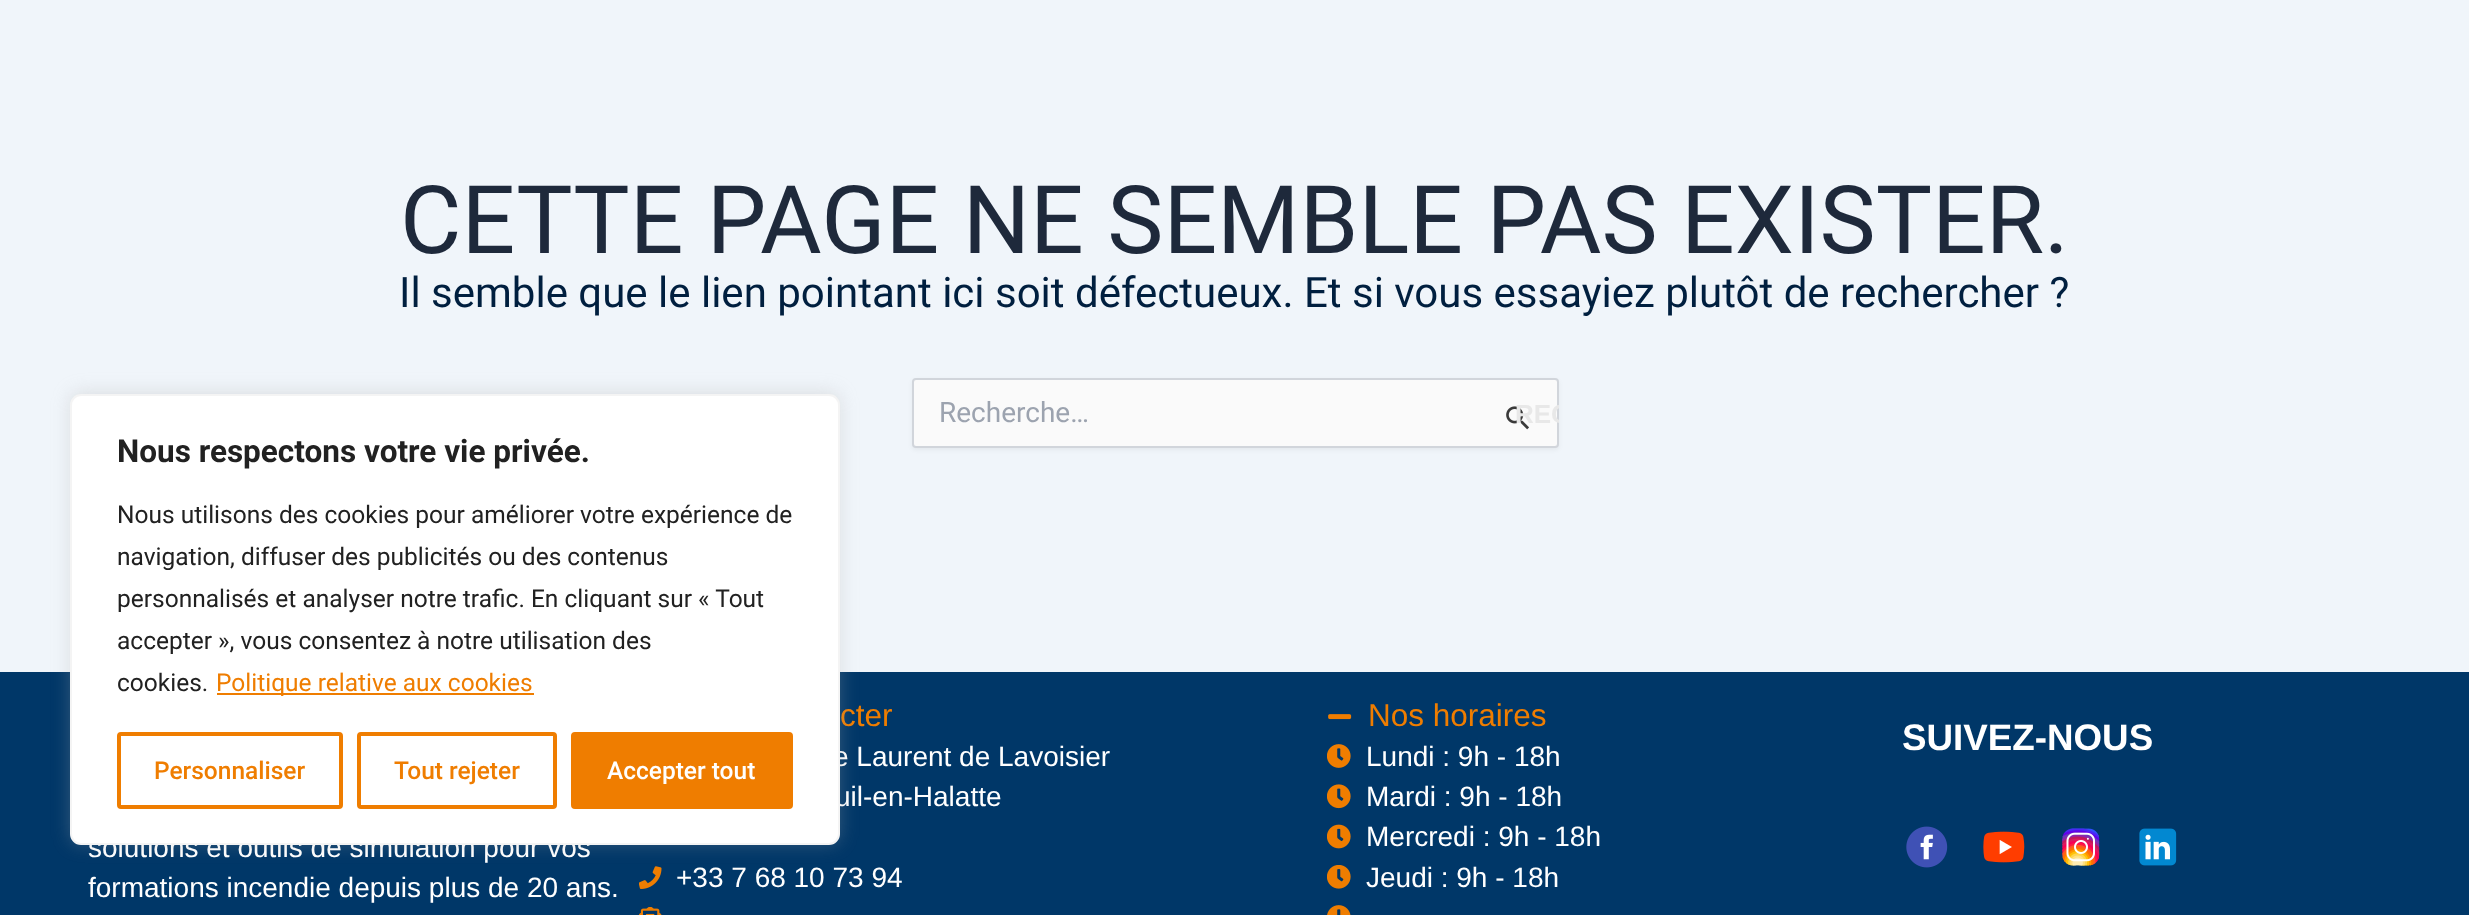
<!DOCTYPE html>
<meta charset="utf-8">
<style>body { margin: 0 } canvas { display: block }</style>
<canvas id="canvas" width="2469" height="915"></canvas>
<script type="module">
  const canvas = document.getElementById("canvas");
  const ctx = canvas.getContext("2d");
  ctx.miterLimit = 4;
  ctx.fontKerning = "normal";
  async function loadImage(src) {
    const img = new Image();
    img.src = src;
    await img.decode();
    return img;
  }

  ctx.fillStyle = "#f0f5fa";
  ctx.fillRect(0, 0, 2469, 915);
  ctx.font = "94.5px Roboto";
  ctx.fillStyle = "#1e293b";
  ctx.fillText("CETTE PAGE NE SEMBLE PAS EXISTER.", 400, 253);
  ctx.font = "42px Roboto";
  ctx.fillStyle = "#001f3f";
  ctx.fillText("Il semble que le lien pointant ici soit défectueux. Et si vous essayiez plutôt de rechercher ?", 399, 307);
  ctx.fillStyle = "rgba(0, 0, 0, 0.05)";
  ctx.filter = "blur(2px)";
  ctx.beginPath();
  ctx.roundRect(912, 380, 647, 70, 4);
  ctx.fill();
  ctx.filter = "none";
  ctx.fillStyle = "#fafafa";
  ctx.beginPath();
  ctx.roundRect(913, 379, 645, 68, 3);
  ctx.fill();
  ctx.strokeStyle = "#d1d5db";
  ctx.lineWidth = 2;
  ctx.stroke();
  ctx.font = "28px Roboto";
  ctx.fillStyle = "#9ca3af";
  ctx.fillText("Recherche…", 939, 422);
  ctx.drawImage(await loadImage("img1.png"), 1506, 406, 23, 24);
  ctx.save();
  ctx.beginPath();
  ctx.roundRect(1481, 378, 78, 72, 4);
  ctx.clip();
  ctx.font = "bold 26px Liberation Sans";
  ctx.fillStyle = "#e8e8e8";
  ctx.fillText("REC", 1515, 423);
  ctx.restore();
  ctx.fillStyle = "#003768";
  ctx.fillRect(0, 672, 2469, 243);
  ctx.font = "31.5px Liberation Sans";
  ctx.fillStyle = "#ef7d00";
  ctx.fillText("cter", 840, 726);
  ctx.font = "28px Liberation Sans";
  ctx.fillStyle = "#ffffff";
  ctx.fillText("e Laurent de Lavoisier", 833, 766);
  ctx.fillText("uil-en-Halatte", 835, 806);
  ctx.drawImage(await loadImage("img2.png"), 639, 866, 23, 23);
  ctx.fillText("+33 7 68 10 73 94", 676, 887);
  ctx.drawImage(await loadImage("img3.png"), 639, 907, 23, 8);
  ctx.drawImage(await loadImage("img4.png"), 1328, 714, 24, 6);
  ctx.font = "31.5px Liberation Sans";
  ctx.fillStyle = "#ef7d00";
  ctx.fillText("Nos horaires", 1368, 726);
  ctx.drawImage(await loadImage("img5.png"), 1327, 744, 24, 24);
  ctx.font = "28px Liberation Sans";
  ctx.fillStyle = "#ffffff";
  ctx.fillText("Lundi : 9h - 18h", 1366, 766);
  ctx.drawImage(await loadImage("img6.png"), 1327, 784, 24, 25);
  ctx.fillText("Mardi : 9h - 18h", 1366, 806);
  ctx.drawImage(await loadImage("img7.png"), 1327, 824, 24, 25);
  ctx.fillText("Mercredi : 9h - 18h", 1366, 846);
  ctx.drawImage(await loadImage("img8.png"), 1327, 865, 24, 24);
  ctx.fillText("Jeudi : 9h - 18h", 1366, 887);
  ctx.drawImage(await loadImage("img9.png"), 1327, 905, 24, 10);
  ctx.font = "bold 36.75px Liberation Sans";
  ctx.fillText("SUIVEZ-NOUS", 1902, 750);
  ctx.drawImage(await loadImage("img10.png"), 1906, 826, 42, 42);
  ctx.drawImage(await loadImage("img11.png"), 1983, 831, 42, 32);
  ctx.drawImage(await loadImage("img12.png"), 2062, 828, 38, 38);
  ctx.drawImage(await loadImage("img13.png"), 2139, 828, 38, 38);
  ctx.font = "28px Liberation Sans";
  ctx.fillText("solutions et outils de simulation pour vos", 88, 857);
  ctx.fillText("formations incendie depuis plus de 20 ans.", 88, 897);
  ctx.fillStyle = "rgba(172, 171, 171, 0.3)";
  ctx.filter = "blur(9px)";
  ctx.beginPath();
  ctx.roundRect(70, 392, 770, 452, 11);
  ctx.fill();
  ctx.filter = "none";
  ctx.fillStyle = "#ffffff";
  ctx.beginPath();
  ctx.roundRect(71, 395, 768, 449, 10);
  ctx.fill();
  ctx.strokeStyle = "#f4f4f4";
  ctx.stroke();
  ctx.font = "bold 31.5px Roboto";
  ctx.fillStyle = "#212121";
  ctx.fillText("Nous respectons votre vie privée.", 117, 462);
  ctx.font = "24.5px Roboto";
  ctx.fillText("Nous utilisons des cookies pour améliorer votre expérience de", 117, 523);
  ctx.fillText("navigation, diffuser des publicités ou des contenus", 117, 565);
  ctx.fillText("personnalisés et analyser notre trafic. En cliquant sur « Tout", 117, 607);
  ctx.fillText("accepter », vous consentez à notre utilisation des", 117, 649);
  ctx.fillText("cookies.", 117, 691);
  ctx.fillStyle = "#ef7d00";
  ctx.fillRect(217, 693, 317, 2);
  ctx.fillText("Politique relative aux cookies", 216, 691);
  ctx.beginPath();
  ctx.roundRect(119, 734, 222, 73, 2);
  ctx.strokeStyle = "#ef7d00";
  ctx.lineWidth = 4;
  ctx.stroke();
  ctx.font = "500 24.5px Roboto";
  ctx.fillText("Personnaliser", 154, 779);
  ctx.beginPath();
  ctx.roundRect(359, 734, 196, 73, 2);
  ctx.stroke();
  ctx.fillText("Tout rejeter", 394, 779);
  ctx.beginPath();
  ctx.roundRect(573, 734, 218, 73, 2);
  ctx.fill();
  ctx.stroke();
  ctx.fillStyle = "#ffffff";
  ctx.fillText("Accepter tout", 607, 779);
</script>
